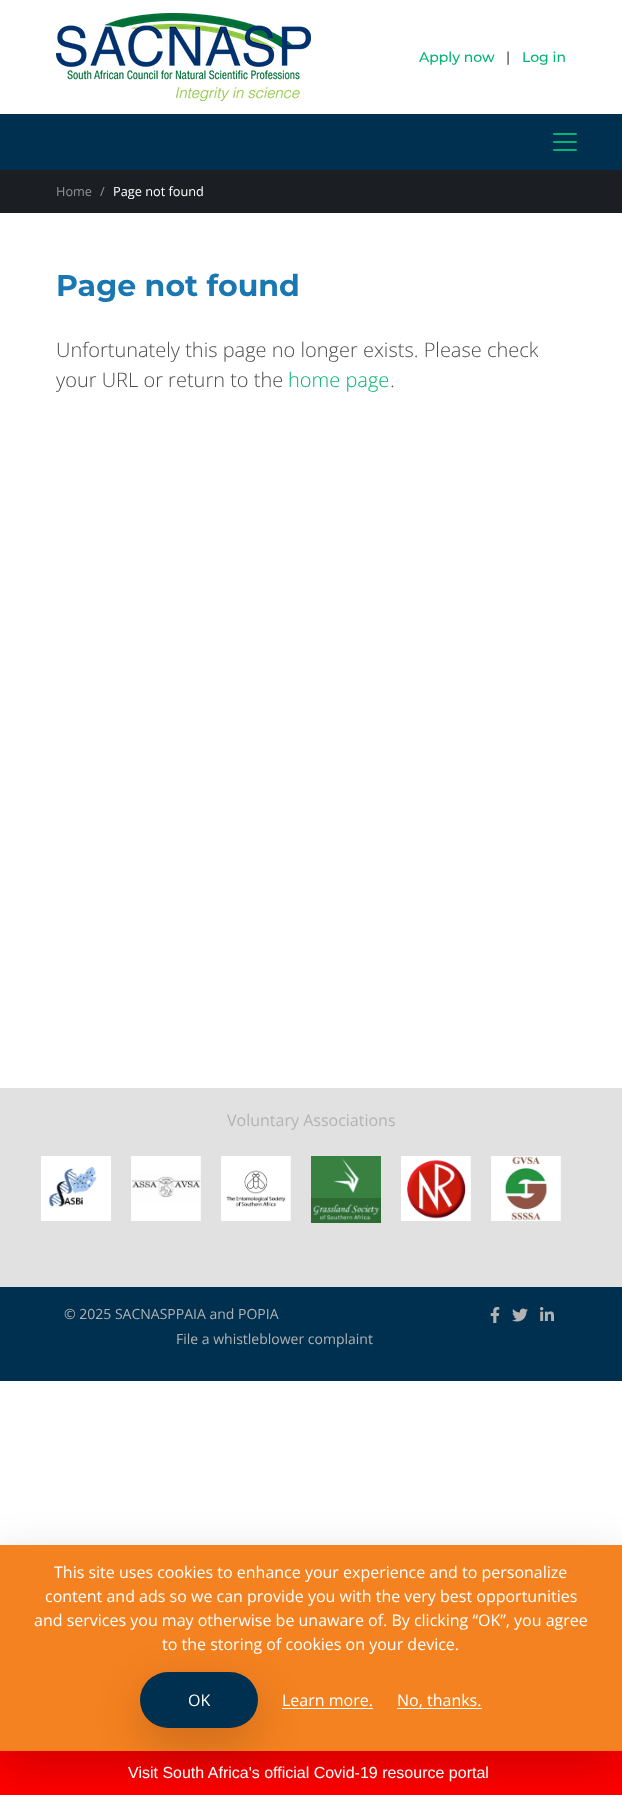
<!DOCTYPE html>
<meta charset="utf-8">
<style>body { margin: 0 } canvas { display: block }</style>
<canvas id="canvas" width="622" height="1795"></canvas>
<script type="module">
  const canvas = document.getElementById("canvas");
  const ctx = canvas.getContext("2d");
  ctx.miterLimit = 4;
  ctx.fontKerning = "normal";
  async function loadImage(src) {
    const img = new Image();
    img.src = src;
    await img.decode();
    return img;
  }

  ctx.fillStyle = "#ffffff";
  ctx.fillRect(0, 0, 622, 1795);
  ctx.drawImage(await loadImage("img1.png"), 56, 13, 255, 88);
  ctx.font = "500 14px Montserrat";
  ctx.fillStyle = "#00b573";
  ctx.fillText("Apply now", 419, 62);
  ctx.fillStyle = "#4d4d4f";
  ctx.fillText("|", 506, 62);
  ctx.fillStyle = "#00b573";
  ctx.fillText("Log in", 522, 62);
  ctx.fillStyle = "#00304f";
  ctx.fillRect(0, 114, 622, 56);
  ctx.drawImage(await loadImage("img2.png"), 553, 133, 24, 18);
  ctx.fillStyle = "#1b1f23";
  ctx.fillRect(0, 170, 622, 43);
  ctx.font = "12.75px Open Sans";
  ctx.fillStyle = "#909497";
  ctx.fillText("Home", 56, 196);
  ctx.fillText("/", 100, 196);
  ctx.fillStyle = "#ffffff";
  ctx.fillText("Page not found", 113, 196);
  ctx.font = "bold 30px Montserrat";
  ctx.fillStyle = "#1977b1";
  ctx.fillText("Page not found", 56, 296);
  ctx.font = "300 20px Open Sans";
  ctx.fillStyle = "#4d4d4f";
  ctx.fillText("Unfortunately this page no longer exists. Please check", 56, 357);
  ctx.fillText("your URL or return to the", 56, 387);
  ctx.fillStyle = "#00b573";
  ctx.fillText("home page", 288, 387);
  ctx.fillStyle = "#4d4d4f";
  ctx.fillText(".", 390, 387);
  ctx.fillStyle = "#e1e1e1";
  ctx.fillRect(0, 1088, 622, 199);
  ctx.font = "16px Open Sans";
  ctx.fillStyle = "#b3b3b3";
  ctx.fillText("Voluntary Associations", 227, 1126);
  ctx.drawImage(await loadImage("img3.png"), 41, 1156, 70, 65);
  ctx.drawImage(await loadImage("img4.png"), 131, 1156, 70, 65);
  ctx.drawImage(await loadImage("img5.png"), 221, 1156, 70, 65);
  ctx.drawImage(await loadImage("img6.png"), 311, 1156, 70, 67);
  ctx.drawImage(await loadImage("img7.png"), 401, 1156, 70, 65);
  ctx.drawImage(await loadImage("img8.png"), 491, 1156, 70, 65);
  ctx.fillStyle = "#00304f";
  ctx.fillRect(0, 1287, 622, 94);
  ctx.font = "14px Open Sans";
  ctx.fillStyle = "#b3b3b3";
  ctx.fillText("© 2025 SACNASPPAIA and POPIA", 64, 1319);
  ctx.fillText("File a whistleblower complaint", 176, 1344);
  ctx.drawImage(await loadImage("img9.png"), 490, 1307, 10, 16);
  ctx.drawImage(await loadImage("img10.png"), 512, 1308, 16, 14);
  ctx.drawImage(await loadImage("img11.png"), 540, 1307, 14, 14);
  ctx.fillStyle = "#ff0000";
  ctx.fillRect(0, 1751, 622, 44);
  ctx.fillStyle = "rgba(0, 0, 0, 0.18)";
  ctx.filter = "blur(24px)";
  ctx.beginPath();
  ctx.rect(0, 1561, 622, 206);
  ctx.fill();
  ctx.filter = "none";
  ctx.fillStyle = "#f58220";
  ctx.fillRect(0, 1545, 622, 206);
  ctx.font = "16px Open Sans";
  ctx.fillStyle = "#ffffff";
  ctx.fillText("This site uses cookies to enhance your experience and to personalize", 54, 1578);
  ctx.fillText("content and ads so we can provide you with the very best opportunities", 45, 1602);
  ctx.fillText("and services you may otherwise be unaware of. By clicking “OK”, you agree", 34, 1626);
  ctx.fillText("to the storing of cookies on your device.", 162, 1650);
  ctx.fillRect(282, 1708, 91, 1);
  ctx.fillStyle = "rgba(0, 0, 0, 0.18)";
  ctx.filter = "blur(24px)";
  ctx.beginPath();
  ctx.roundRect(140, 1688, 118, 56, 28);
  ctx.fill();
  ctx.filter = "none";
  ctx.fillStyle = "#00304f";
  ctx.beginPath();
  ctx.roundRect(140, 1672, 118, 56, 28);
  ctx.fill();
  ctx.fillStyle = "#ffffff";
  ctx.fillText("OK", 188, 1706);
  ctx.fillText("Learn more.", 282, 1706);
  ctx.fillRect(397, 1708, 85, 1);
  ctx.fillText("No, thanks.", 397, 1706);
  ctx.font = "16px Liberation Sans";
  ctx.fillText("Visit South Africa's official Covid-19 resource portal", 128, 1778);
</script>
